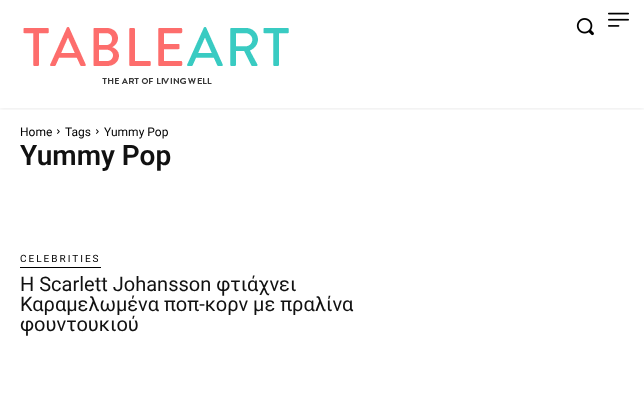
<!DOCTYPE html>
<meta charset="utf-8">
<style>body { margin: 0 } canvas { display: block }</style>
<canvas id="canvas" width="644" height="410"></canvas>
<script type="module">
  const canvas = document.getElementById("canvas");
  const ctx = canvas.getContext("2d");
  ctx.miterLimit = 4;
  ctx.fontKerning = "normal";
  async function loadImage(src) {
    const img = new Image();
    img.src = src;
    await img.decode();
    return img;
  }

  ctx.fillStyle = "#ffffff";
  ctx.fillRect(0, 0, 644, 410);
  ctx.drawImage(await loadImage("img1.png"), 23, 27, 266, 57);
  ctx.drawImage(await loadImage("img2.png"), 576, 18, 18, 18);
  ctx.drawImage(await loadImage("img3.png"), 608, 12, 21, 15);
  ctx.save();
  ctx.beginPath();
  ctx.rect(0, 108, 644, 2);
  ctx.clip();
  ctx.fillStyle = "rgba(0, 0, 0, 0.08)";
  ctx.filter = "blur(2px)";
  ctx.beginPath();
  ctx.rect(0, 1, 644, 108);
  ctx.fill();
  ctx.filter = "none";
  ctx.restore();
  ctx.font = "12px Roboto";
  ctx.fillStyle = "#000000";
  ctx.fillText("Home", 20, 136);
  ctx.drawImage(await loadImage("img4.png"), 57, 129, 3, 5);
  ctx.fillText("Tags", 65, 136);
  ctx.drawImage(await loadImage("img4.png"), 96, 129, 3, 5);
  ctx.fillText("Yummy Pop", 104, 136);
  ctx.font = "600 28px Roboto";
  ctx.fillStyle = "#111111";
  ctx.fillText("Yummy Pop", 20, 165);
  ctx.fillStyle = "#000000";
  ctx.fillRect(20, 267, 81, 1);
  ctx.letterSpacing = "2px";
  ctx.font = "10px Roboto";
  ctx.fillText("CELEBRITIES", 20, 262);
  ctx.letterSpacing = "0px";
  ctx.font = "20px Roboto";
  ctx.fillStyle = "#111111";
  ctx.fillText("Η Scarlett Johansson φτιάχνει", 20, 291);
  ctx.fillText("Καραμελωμένα ποπ-κορν με πραλίνα", 20, 311);
  ctx.fillText("φουντουκιού", 20, 331);
</script>
